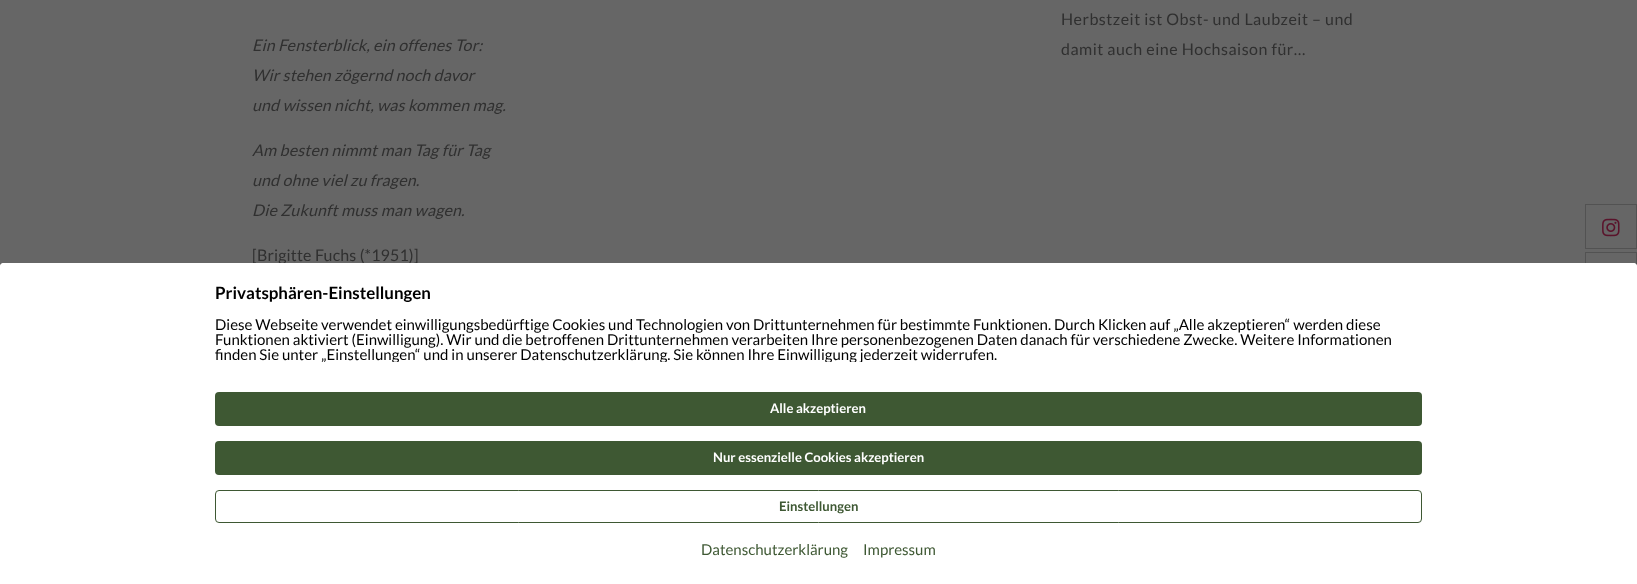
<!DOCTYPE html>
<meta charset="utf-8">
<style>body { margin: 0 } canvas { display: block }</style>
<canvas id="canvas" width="1637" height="584"></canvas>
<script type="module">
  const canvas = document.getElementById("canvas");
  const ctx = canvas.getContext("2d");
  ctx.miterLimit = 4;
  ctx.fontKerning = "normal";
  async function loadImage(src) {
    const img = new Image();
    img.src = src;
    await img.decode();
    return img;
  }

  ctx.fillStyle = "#666666";
  ctx.fillRect(0, 0, 1637, 584);
  ctx.letterSpacing = "0.5px";
  ctx.font = "16px Lato";
  ctx.fillStyle = "#303030";
  ctx.fillText("Herbstzeit ist Obst- und Laubzeit – und", 1061, 25);
  ctx.fillText("damit auch eine Hochsaison für…", 1061, 55);
  ctx.letterSpacing = "0.15px";
  ctx.font = "italic 16px Lato";
  ctx.fillText("Ein Fensterblick, ein offenes Tor:", 252, 51);
  ctx.fillText("Wir stehen zögernd noch davor", 252, 81);
  ctx.fillText("und wissen nicht, was kommen mag.", 252, 111);
  ctx.fillText("Am besten nimmt man Tag für Tag", 252, 156);
  ctx.fillText("und ohne viel zu fragen.", 252, 186);
  ctx.fillText("Die Zukunft muss man wagen.", 252, 216);
  ctx.font = "16px Lato";
  ctx.fillText("[Brigitte Fuchs (*1951)]", 252, 261);
  ctx.strokeStyle = "#525252";
  ctx.strokeRect(1585.5, 204.5, 51, 44);
  ctx.drawImage(await loadImage("img1.png"), 1602, 218, 18, 19);
  ctx.strokeRect(1585.5, 252.5, 51, 44);
  ctx.fillStyle = "#ffffff";
  ctx.beginPath();
  ctx.roundRect(0, 263, 1637, 321, [4, 4, 0, 0]);
  ctx.fill();
  ctx.beginPath();
  ctx.roundRect(0, 263, 1637, 321, 4);
  ctx.fill();
  ctx.letterSpacing = "0px";
  ctx.font = "bold 16.9px Lato";
  ctx.fillStyle = "#000000";
  ctx.fillText("Privatsphären-Einstellungen", 215, 299);
  ctx.font = "15px Lato";
  ctx.fillText("Diese Webseite verwendet einwilligungsbedürftige Cookies und Technologien von Drittunternehmen für bestimmte Funktionen. Durch Klicken auf „Alle akzeptieren“ werden diese", 215, 330);
  ctx.fillText("Funktionen aktiviert (Einwilligung). Wir und die betroffenen Drittunternehmen verarbeiten Ihre personenbezogenen Daten danach für verschiedene Zwecke. Weitere Informationen", 215, 345);
  ctx.save();
  ctx.beginPath();
  ctx.rect(215, 317, 1207, 45);
  ctx.clip();
  ctx.fillText("finden Sie unter „Einstellungen“ und in unserer Datenschutzerklärung. Sie können Ihre Einwilligung jederzeit widerrufen.", 215, 360);
  ctx.restore();
  ctx.fillStyle = "#3e5833";
  ctx.beginPath();
  ctx.roundRect(215, 392, 1207, 34, 4);
  ctx.fill();
  ctx.font = "bold 13.1px Lato";
  ctx.fillStyle = "#ffffff";
  ctx.fillText("Alle akzeptieren", 770, 413);
  ctx.fillStyle = "#3e5833";
  ctx.beginPath();
  ctx.roundRect(215, 441, 1207, 34, 4);
  ctx.fill();
  ctx.fillStyle = "#ffffff";
  ctx.fillText("Nur essenzielle Cookies akzeptieren", 713, 462);
  ctx.beginPath();
  ctx.roundRect(215.5, 490.5, 1206, 32, 3.5);
  ctx.strokeStyle = "#3e5833";
  ctx.stroke();
  ctx.fillStyle = "#3e5833";
  ctx.fillText("Einstellungen", 779, 511);
  ctx.font = "15px Lato";
  ctx.fillText("Datenschutzerklärung", 701, 555);
  ctx.fillText("Impressum", 863, 555);
</script>
